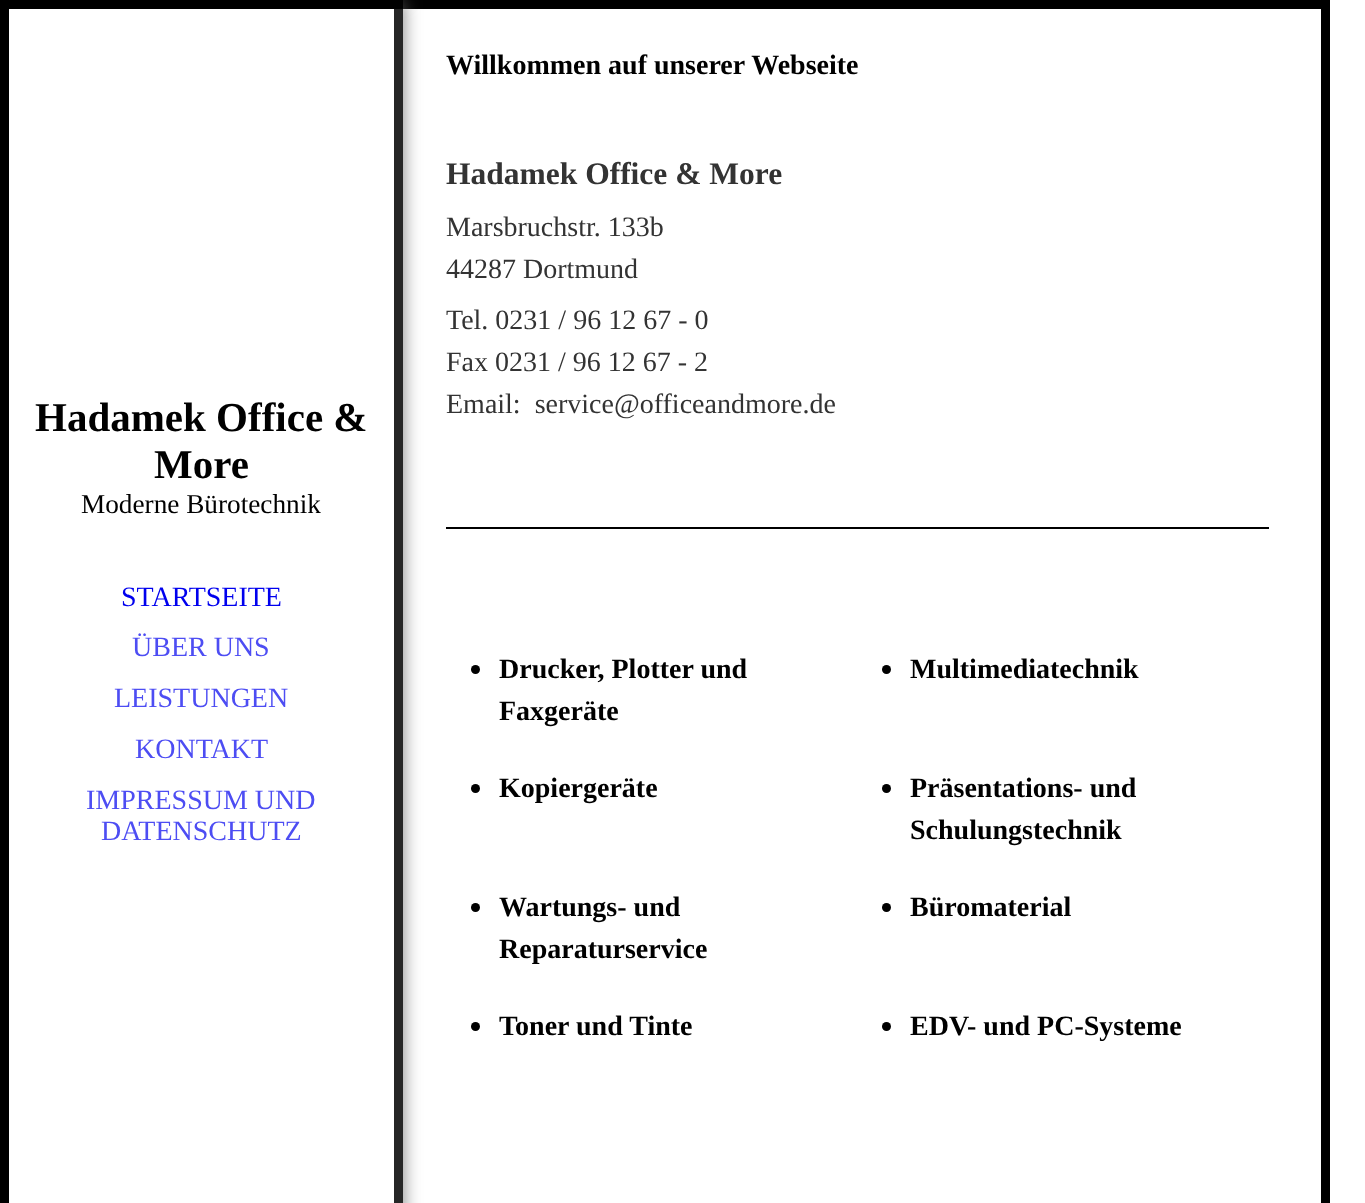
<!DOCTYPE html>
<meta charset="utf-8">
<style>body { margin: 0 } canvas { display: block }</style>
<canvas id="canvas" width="1365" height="1203"></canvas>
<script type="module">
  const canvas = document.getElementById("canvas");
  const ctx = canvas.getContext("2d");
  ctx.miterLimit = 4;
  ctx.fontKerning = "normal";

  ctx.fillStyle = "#ffffff";
  ctx.fillRect(0, 0, 1365, 1203);
  ctx.strokeStyle = "#000000";
  ctx.lineWidth = 9;
  ctx.strokeRect(4.5, 4.5, 1321, 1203);
  ctx.save();
  ctx.beginPath();
  ctx.moveTo(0, 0);
  ctx.lineTo(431, 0);
  ctx.lineTo(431, 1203);
  ctx.lineTo(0, 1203);
  ctx.closePath();
  ctx.moveTo(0, 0);
  ctx.lineTo(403, 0);
  ctx.lineTo(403, 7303);
  ctx.lineTo(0, 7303);
  ctx.closePath();
  ctx.clip("evenodd");
  ctx.fillStyle = "rgba(102, 102, 102, 0.85)";
  ctx.filter = "blur(9px)";
  ctx.beginPath();
  ctx.rect(0, 0, 403, 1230);
  ctx.fill();
  ctx.filter = "none";
  ctx.restore();
  ctx.fillStyle = "rgba(0, 0, 0, 0.85)";
  ctx.fillRect(394, 0, 9, 1203);
  ctx.font = "bold 28px Liberation Serif";
  ctx.fillStyle = "#000000";
  ctx.fillText("Willkommen auf unserer Webseite", 446, 74);
  ctx.font = "bold 31.5px Liberation Serif";
  ctx.fillStyle = "#333333";
  ctx.fillText("Hadamek Office & More", 446, 184);
  ctx.font = "28px Liberation Serif";
  ctx.fillText("Marsbruchstr. 133b", 446, 236);
  ctx.fillText("44287 Dortmund", 446, 278);
  ctx.fillText("Tel. 0231 / 96 12 67 - 0", 446, 329);
  ctx.fillText("Fax 0231 / 96 12 67 - 2", 446, 371);
  ctx.fillText("Email:  service@officeandmore.de", 446, 413);
  ctx.fillStyle = "#000000";
  ctx.fillRect(446, 527, 823, 2);
  ctx.beginPath();
  ctx.arc(475.5, 669.5, 4.5, 0, Math.PI * 2);
  ctx.fill();
  ctx.font = "bold 28px Liberation Serif";
  ctx.fillText("Drucker, Plotter und", 499, 678);
  ctx.fillText("Faxgeräte", 499, 720);
  ctx.beginPath();
  ctx.arc(886.5, 669.5, 4.5, 0, Math.PI * 2);
  ctx.fill();
  ctx.fillText("Multimediatechnik", 910, 678);
  ctx.beginPath();
  ctx.arc(475.5, 788.5, 4.5, 0, Math.PI * 2);
  ctx.fill();
  ctx.fillText("Kopiergeräte", 499, 797);
  ctx.beginPath();
  ctx.arc(886.5, 788.5, 4.5, 0, Math.PI * 2);
  ctx.fill();
  ctx.fillText("Präsentations- und", 910, 797);
  ctx.fillText("Schulungstechnik", 910, 839);
  ctx.beginPath();
  ctx.arc(475.5, 907.5, 4.5, 0, Math.PI * 2);
  ctx.fill();
  ctx.fillText("Wartungs- und", 499, 916);
  ctx.fillText("Reparaturservice", 499, 958);
  ctx.beginPath();
  ctx.arc(886.5, 907.5, 4.5, 0, Math.PI * 2);
  ctx.fill();
  ctx.fillText("Büromaterial", 910, 916);
  ctx.beginPath();
  ctx.arc(475.5, 1026.5, 4.5, 0, Math.PI * 2);
  ctx.fill();
  ctx.fillText("Toner und Tinte", 499, 1035);
  ctx.beginPath();
  ctx.arc(886.5, 1026.5, 4.5, 0, Math.PI * 2);
  ctx.fill();
  ctx.fillText("EDV- und PC-Systeme", 910, 1035);
  ctx.font = "bold 41px Liberation Serif";
  ctx.fillText("Hadamek Office &", 35, 431);
  ctx.fillText("More", 154, 478);
  ctx.font = "27.25px Liberation Serif";
  ctx.fillText("Moderne Bürotechnik", 81, 513);
  ctx.font = "28px Liberation Serif";
  ctx.fillStyle = "#0000ee";
  ctx.fillText("STARTSEITE", 121, 606);
  ctx.fillStyle = "#4d4df3";
  ctx.fillText("ÜBER UNS", 132, 656);
  ctx.fillText("LEISTUNGEN", 114, 707);
  ctx.fillText("KONTAKT", 135, 758);
  ctx.fillText("IMPRESSUM UND", 86, 809);
  ctx.fillText("DATENSCHUTZ", 101, 840);
</script>
